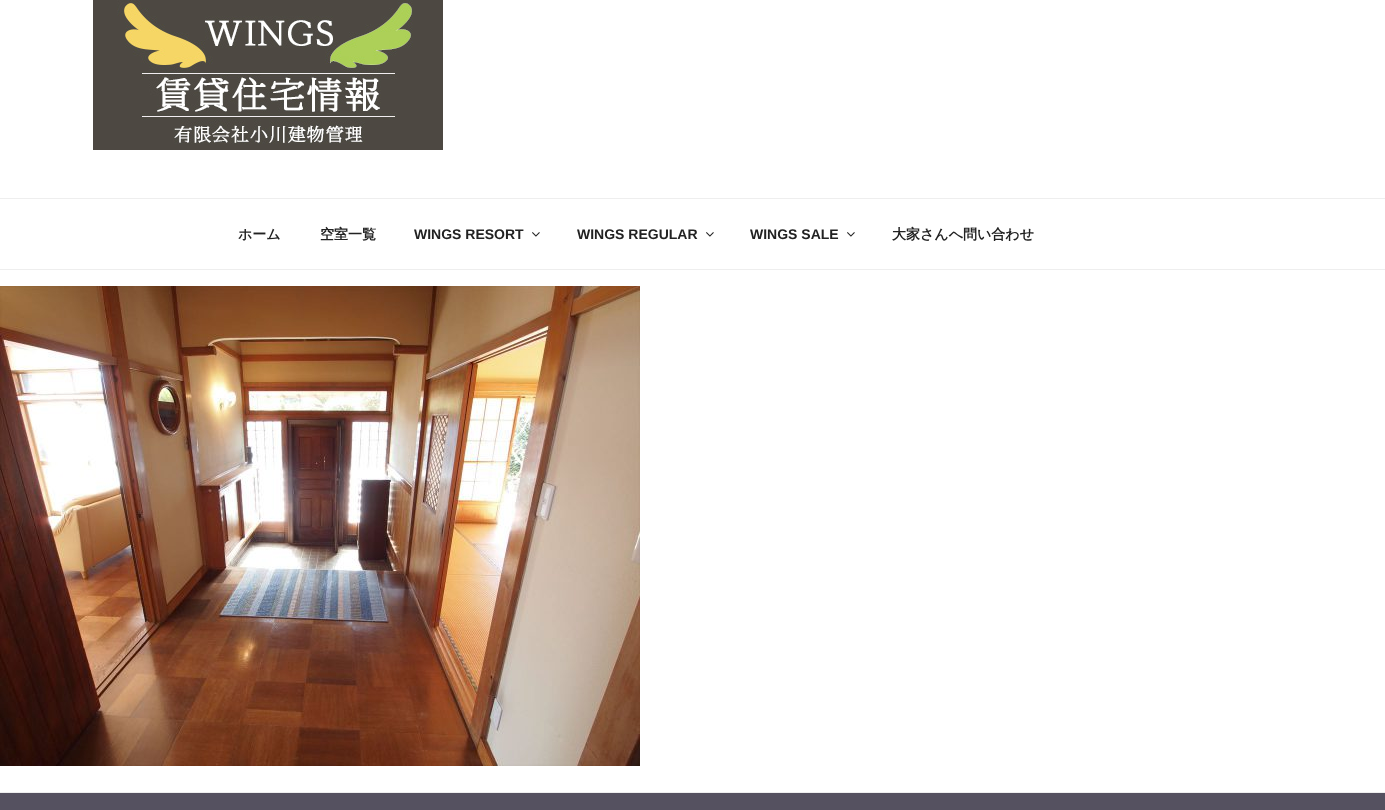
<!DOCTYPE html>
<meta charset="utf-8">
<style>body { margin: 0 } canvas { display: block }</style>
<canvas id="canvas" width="1385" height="810"></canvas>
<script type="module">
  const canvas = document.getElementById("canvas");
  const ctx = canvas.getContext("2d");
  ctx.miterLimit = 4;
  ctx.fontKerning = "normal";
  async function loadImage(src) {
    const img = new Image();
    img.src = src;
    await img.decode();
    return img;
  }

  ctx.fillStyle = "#ffffff";
  ctx.fillRect(0, 0, 1385, 810);
  ctx.drawImage(await loadImage("img1.png"), 93, 0, 350, 150);
  ctx.fillStyle = "#eeeeee";
  ctx.fillRect(0, 198, 1385, 1);
  ctx.fillRect(0, 269, 1385, 1);
  ctx.font = "bold 14px WenQuanYi Zen Hei";
  ctx.fillStyle = "#222222";
  ctx.fillText("ホーム", 238, 239);
  ctx.fillText("空室一覧", 320, 239);
  ctx.font = "bold 14px Liberation Sans";
  ctx.fillText("WINGS RESORT", 414, 239);
  ctx.drawImage(await loadImage("img2.png"), 532, 232, 8, 5);
  ctx.fillText("WINGS REGULAR", 577, 239);
  ctx.drawImage(await loadImage("img2.png"), 706, 232, 8, 5);
  ctx.fillText("WINGS SALE", 750, 239);
  ctx.drawImage(await loadImage("img2.png"), 847, 232, 8, 5);
  ctx.font = "bold 14px WenQuanYi Zen Hei";
  ctx.fillText("大家さんへ問い合わせ", 892, 239);
  ctx.drawImage(await loadImage("img3.png"), 0, 286, 640, 480);
  ctx.fillStyle = "#555160";
  ctx.fillRect(0, 793, 1385, 17);
  ctx.fillStyle = "#eeeeee";
  ctx.fillRect(0, 792, 1385, 1);
</script>
